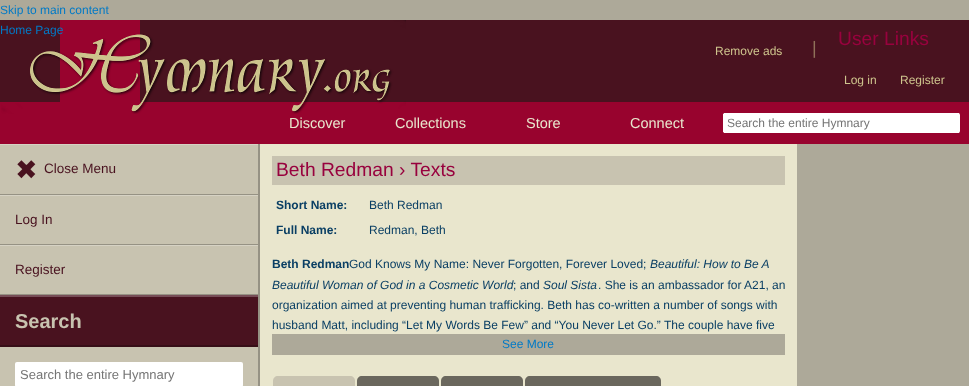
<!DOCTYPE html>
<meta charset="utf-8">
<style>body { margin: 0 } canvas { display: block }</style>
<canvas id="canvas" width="969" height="386"></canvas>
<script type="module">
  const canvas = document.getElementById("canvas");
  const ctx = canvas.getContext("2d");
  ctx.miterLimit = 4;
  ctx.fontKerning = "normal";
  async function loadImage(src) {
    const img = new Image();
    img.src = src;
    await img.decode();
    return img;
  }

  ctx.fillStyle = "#ada999";
  ctx.fillRect(0, 0, 969, 386);
  ctx.font = "12px Liberation Sans";
  ctx.fillStyle = "#027ac6";
  ctx.fillText("Skip to main content", 0, 14);
  ctx.fillStyle = "#49121f";
  ctx.fillRect(0, 20, 969, 82);
  ctx.fillStyle = "#98032e";
  ctx.fillRect(60, 20, 80, 82);
  ctx.fillRect(0, 102, 969, 42);
  ctx.drawImage(await loadImage("img1.png"), 1, 20, 405, 94);
  ctx.fillStyle = "#027ac6";
  ctx.fillText("Home Page", 0, 34);
  ctx.fillStyle = "#cec48d";
  ctx.fillText("Remove ads", 715, 55);
  ctx.font = "18px Liberation Sans";
  ctx.fillStyle = "#907159";
  ctx.fillText("|", 812, 54);
  ctx.font = "19.25px Liberation Sans";
  ctx.fillStyle = "#98023e";
  ctx.fillText("User Links", 838, 45);
  ctx.font = "12px Liberation Sans";
  ctx.fillStyle = "#cec48d";
  ctx.fillText("Log in", 844, 84);
  ctx.fillText("Register", 900, 84);
  ctx.font = "14.5px Liberation Sans";
  ctx.fillStyle = "#e9e6cd";
  ctx.fillText("Discover", 289, 128);
  ctx.fillText("Collections", 395, 128);
  ctx.fillText("Store", 526, 128);
  ctx.fillText("Connect", 630, 128);
  ctx.fillStyle = "#ffffff";
  ctx.beginPath();
  ctx.roundRect(723, 113, 237, 20, 2);
  ctx.fill();
  ctx.fillRect(724, 113, 235, 1);
  ctx.fillRect(724, 132, 235, 1);
  ctx.fillRect(723, 114, 1, 18);
  ctx.font = "12px Liberation Sans";
  ctx.fillStyle = "#757575";
  ctx.fillText("Search the entire Hymnary", 727, 127);
  ctx.fillStyle = "#c8c3b0";
  ctx.fillRect(0, 145, 258, 241);
  ctx.fillStyle = "#969284";
  ctx.fillRect(258, 144, 2, 242);
  ctx.fillStyle = "#d6d2c4";
  ctx.fillRect(0, 144, 258, 1);
  ctx.fillStyle = "#969284";
  ctx.fillRect(0, 194, 258, 1);
  ctx.font = "27px DejaVu Sans";
  ctx.fillStyle = "#49121f";
  ctx.fillText("✖", 15, 179);
  ctx.font = "13.5px Liberation Sans";
  ctx.fillText("Close Menu", 44, 173);
  ctx.fillStyle = "#d6d2c4";
  ctx.fillRect(0, 195, 258, 1);
  ctx.fillStyle = "#969284";
  ctx.fillRect(0, 244, 258, 1);
  ctx.fillStyle = "#49121f";
  ctx.fillText("Log In", 15, 224);
  ctx.fillStyle = "#d6d2c4";
  ctx.fillRect(0, 245, 258, 1);
  ctx.fillStyle = "#969284";
  ctx.fillRect(0, 294, 258, 1);
  ctx.fillStyle = "#49121f";
  ctx.fillText("Register", 15, 274);
  ctx.fillRect(0, 297, 258, 48);
  ctx.fillStyle = "#774d57";
  ctx.fillRect(0, 295, 258, 2);
  ctx.fillStyle = "#370e17";
  ctx.fillRect(0, 345, 258, 2);
  ctx.font = "bold 20px Liberation Sans";
  ctx.fillStyle = "#c8c3b0";
  ctx.fillText("Search", 15, 328);
  ctx.fillStyle = "#ffffff";
  ctx.beginPath();
  ctx.roundRect(15, 362, 228, 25, 2);
  ctx.fill();
  ctx.font = "13px Liberation Sans";
  ctx.fillStyle = "#757575";
  ctx.fillText("Search the entire Hymnary", 20, 379);
  ctx.fillStyle = "#e9e6cd";
  ctx.fillRect(260, 144, 537, 242);
  ctx.fillStyle = "#c8c3b0";
  ctx.fillRect(272, 156, 513, 29);
  ctx.font = "19.25px Liberation Sans";
  ctx.fillStyle = "#98023e";
  ctx.fillText("Beth Redman › Texts", 276, 176);
  ctx.font = "bold 12px Liberation Sans";
  ctx.fillStyle = "#0a3f64";
  ctx.fillText("Short Name:", 276, 209);
  ctx.font = "12px Liberation Sans";
  ctx.fillText("Beth Redman", 369, 209);
  ctx.font = "bold 12px Liberation Sans";
  ctx.fillText("Full Name:", 276, 234);
  ctx.font = "12px Liberation Sans";
  ctx.fillText("Redman, Beth", 369, 234);
  ctx.font = "bold 12px Liberation Sans";
  ctx.fillText("Beth Redman", 272, 268);
  ctx.font = "12px Liberation Sans";
  ctx.fillText("God Knows My Name: Never Forgotten, Forever Loved;", 349, 268);
  ctx.font = "italic 12px Liberation Sans";
  ctx.fillText("Beautiful: How to Be A", 650, 268);
  ctx.fillText("Beautiful Woman of God in a Cosmetic World", 272, 289);
  ctx.font = "12px Liberation Sans";
  ctx.fillText("; and", 513, 289);
  ctx.font = "italic 12px Liberation Sans";
  ctx.fillText("Soul Sista", 543, 289);
  ctx.font = "12px Liberation Sans";
  ctx.fillText(". She is an ambassador for A21, an", 598, 289);
  ctx.fillText("organization aimed at preventing human trafficking. Beth has co-written a number of songs with", 272, 309);
  ctx.fillText("husband Matt, including “Let My Words Be Few” and “You Never Let Go.” The couple have five", 272, 329);
  ctx.fillStyle = "#ada999";
  ctx.fillRect(272, 334, 513, 21);
  ctx.fillStyle = "#027ac6";
  ctx.fillText("See More", 502, 348);
  ctx.fillStyle = "#c8c3b0";
  ctx.beginPath();
  ctx.moveTo(278, 376);
  ctx.lineTo(350, 376);
  ctx.bezierCurveTo(353, 376, 355, 378, 355, 381);
  ctx.lineTo(355, 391);
  ctx.lineTo(273, 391);
  ctx.lineTo(273, 381);
  ctx.bezierCurveTo(273, 378, 275, 376, 278, 376);
  ctx.closePath();
  ctx.fill();
  ctx.fillStyle = "#6a675d";
  ctx.beginPath();
  ctx.moveTo(362, 376);
  ctx.lineTo(434, 376);
  ctx.bezierCurveTo(437, 376, 439, 378, 439, 381);
  ctx.lineTo(439, 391);
  ctx.lineTo(357, 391);
  ctx.lineTo(357, 381);
  ctx.bezierCurveTo(357, 378, 359, 376, 362, 376);
  ctx.closePath();
  ctx.fill();
  ctx.beginPath();
  ctx.moveTo(446, 376);
  ctx.lineTo(518, 376);
  ctx.bezierCurveTo(521, 376, 523, 378, 523, 381);
  ctx.lineTo(523, 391);
  ctx.lineTo(441, 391);
  ctx.lineTo(441, 381);
  ctx.bezierCurveTo(441, 378, 443, 376, 446, 376);
  ctx.closePath();
  ctx.fill();
  ctx.beginPath();
  ctx.moveTo(530, 376);
  ctx.lineTo(656, 376);
  ctx.bezierCurveTo(659, 376, 661, 378, 661, 381);
  ctx.lineTo(661, 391);
  ctx.lineTo(525, 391);
  ctx.lineTo(525, 381);
  ctx.bezierCurveTo(525, 378, 527, 376, 530, 376);
  ctx.closePath();
  ctx.fill();
</script>
